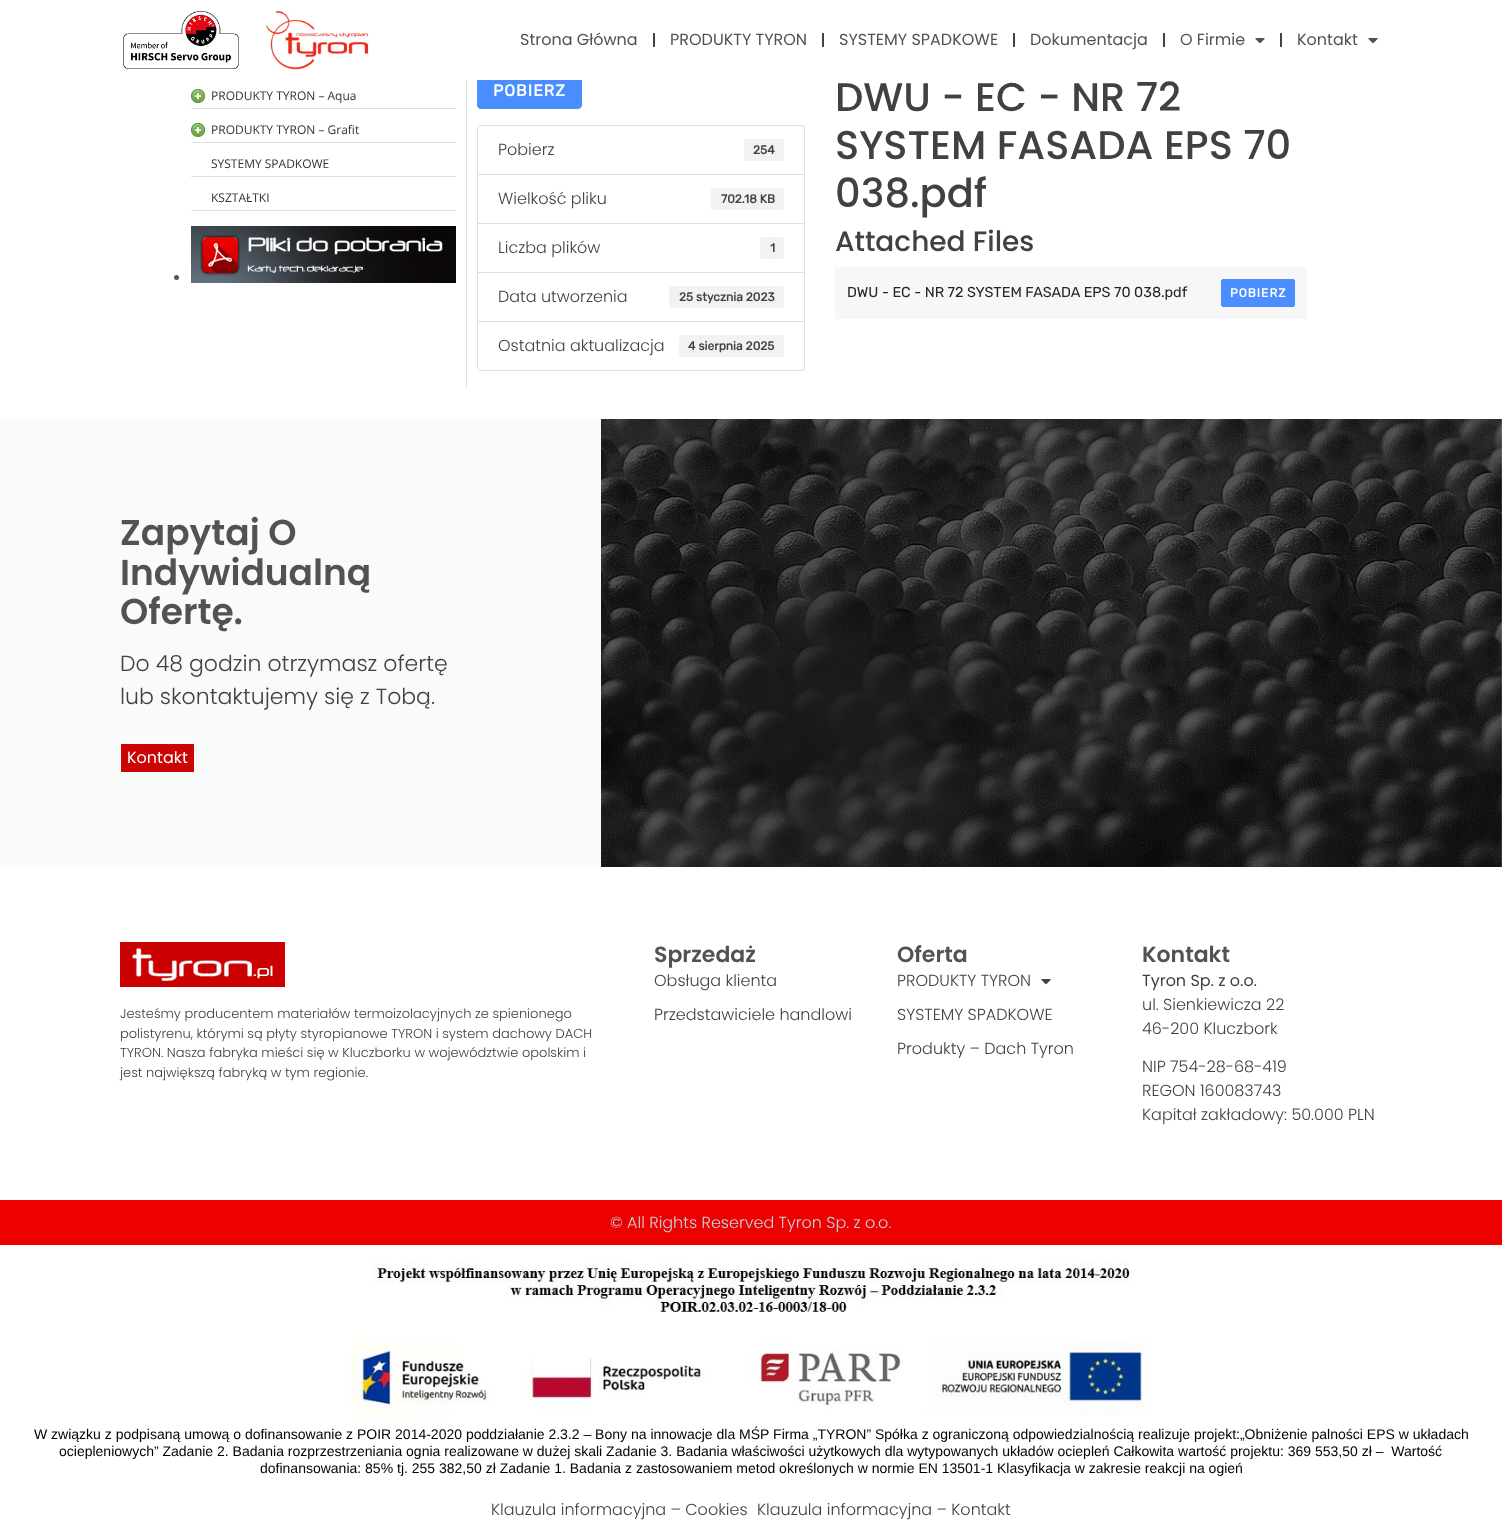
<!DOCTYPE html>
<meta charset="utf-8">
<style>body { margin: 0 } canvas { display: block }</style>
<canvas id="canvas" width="1502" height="1532"></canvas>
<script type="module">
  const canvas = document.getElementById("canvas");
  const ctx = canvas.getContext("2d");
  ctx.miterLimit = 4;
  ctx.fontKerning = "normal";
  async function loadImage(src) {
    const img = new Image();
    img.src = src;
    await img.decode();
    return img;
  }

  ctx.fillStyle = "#ffffff";
  ctx.fillRect(0, 0, 1502, 1532);
  ctx.fillStyle = "#4a8eff";
  ctx.beginPath();
  ctx.roundRect(477.5, 73.5, 104, 35, 3.5);
  ctx.fill();
  ctx.strokeStyle = "#4a8eff";
  ctx.stroke();
  ctx.fillStyle = "#ffffff";
  ctx.fillRect(477, 73, 105, 7);
  ctx.drawImage(await loadImage("img1.png"), 123, 11, 116, 58);
  ctx.drawImage(await loadImage("img2.png"), 264, 10, 105, 60);
  ctx.font = "16px Poppins";
  ctx.fillStyle = "#525252";
  ctx.fillText("Strona Główna", 520, 45);
  ctx.fillStyle = "#414141";
  ctx.fillRect(653, 33, 2, 14);
  ctx.fillStyle = "#525252";
  ctx.fillText("PRODUKTY TYRON", 670, 45);
  ctx.fillStyle = "#414141";
  ctx.fillRect(822, 33, 2, 14);
  ctx.fillStyle = "#525252";
  ctx.fillText("SYSTEMY SPADKOWE", 839, 45);
  ctx.fillStyle = "#414141";
  ctx.fillRect(1013, 33, 2, 14);
  ctx.fillStyle = "#525252";
  ctx.fillText("Dokumentacja", 1030, 45);
  ctx.fillStyle = "#414141";
  ctx.fillRect(1163, 33, 2, 14);
  ctx.fillStyle = "#525252";
  ctx.fillText("O Firmie", 1180, 45);
  ctx.drawImage(await loadImage("img3.png"), 1255, 38, 10, 6);
  ctx.fillStyle = "#414141";
  ctx.fillRect(1280, 33, 2, 14);
  ctx.fillStyle = "#525252";
  ctx.fillText("Kontakt", 1297, 45);
  ctx.drawImage(await loadImage("img3.png"), 1368, 38, 10, 6);
  ctx.drawImage(await loadImage("img4.png"), 191, 89, 14, 14);
  ctx.fillStyle = "#e0e0e0";
  ctx.fillRect(191, 108, 265, 1);
  ctx.font = "12px Open Sans";
  ctx.fillStyle = "#333333";
  ctx.fillText("PRODUKTY TYRON – Aqua", 211, 100);
  ctx.drawImage(await loadImage("img4.png"), 191, 123, 14, 14);
  ctx.fillStyle = "#e0e0e0";
  ctx.fillRect(191, 142, 265, 1);
  ctx.fillStyle = "#333333";
  ctx.fillText("PRODUKTY TYRON – Grafit", 211, 134);
  ctx.fillStyle = "#e0e0e0";
  ctx.fillRect(191, 176, 265, 1);
  ctx.fillStyle = "#333333";
  ctx.fillText("SYSTEMY SPADKOWE", 211, 168);
  ctx.fillStyle = "#e0e0e0";
  ctx.fillRect(191, 210, 265, 1);
  ctx.fillStyle = "#333333";
  ctx.fillText("KSZTAŁTKI", 211, 202);
  ctx.fillStyle = "#565656";
  ctx.beginPath();
  ctx.arc(176.5, 277.5, 2.5, 0, Math.PI * 2);
  ctx.fill();
  ctx.drawImage(await loadImage("img5.png"), 191, 226, 265, 57);
  ctx.fillStyle = "#e1e1e1";
  ctx.fillRect(466, 80, 1, 309);
  ctx.letterSpacing = "1px";
  ctx.font = "bold 16px Rubik";
  ctx.fillStyle = "#ffffff";
  ctx.fillText("POBIERZ", 493, 96);
  ctx.beginPath();
  ctx.roundRect(477.5, 125.5, 327, 49, [3.5, 3.5, 0, 0]);
  ctx.strokeStyle = "#dfdfdf";
  ctx.stroke();
  ctx.letterSpacing = "0px";
  ctx.font = "300 16px Poppins";
  ctx.fillStyle = "#414141";
  ctx.fillText("Pobierz", 498, 155);
  ctx.fillStyle = "#f2f2f2";
  ctx.beginPath();
  ctx.roundRect(744, 139, 40, 22, 3);
  ctx.fill();
  ctx.font = "bold 12px Rubik";
  ctx.fillStyle = "#414141";
  ctx.fillText("254", 753, 154);
  ctx.strokeRect(477.5, 174.5, 327, 49);
  ctx.font = "300 16px Poppins";
  ctx.fillText("Wielkość pliku", 498, 204);
  ctx.fillStyle = "#f2f2f2";
  ctx.beginPath();
  ctx.roundRect(711, 188, 73, 22, 3);
  ctx.fill();
  ctx.font = "bold 12px Rubik";
  ctx.fillStyle = "#414141";
  ctx.fillText("702.18 KB", 721, 203);
  ctx.strokeRect(477.5, 223.5, 327, 49);
  ctx.font = "300 16px Poppins";
  ctx.fillText("Liczba plików", 498, 253);
  ctx.fillStyle = "#f2f2f2";
  ctx.beginPath();
  ctx.roundRect(760, 237, 24, 22, 3);
  ctx.fill();
  ctx.font = "bold 12px Rubik";
  ctx.fillStyle = "#414141";
  ctx.fillText("1", 770, 252);
  ctx.strokeRect(477.5, 272.5, 327, 49);
  ctx.font = "300 16px Poppins";
  ctx.fillText("Data utworzenia", 498, 302);
  ctx.fillStyle = "#f2f2f2";
  ctx.beginPath();
  ctx.roundRect(669, 286, 115, 22, 3);
  ctx.fill();
  ctx.font = "bold 12px Rubik";
  ctx.fillStyle = "#414141";
  ctx.fillText("25 stycznia 2023", 679, 301);
  ctx.fillStyle = "#ffffff";
  ctx.beginPath();
  ctx.roundRect(477.5, 321.5, 327, 49, [0, 0, 3.5, 3.5]);
  ctx.fill();
  ctx.stroke();
  ctx.font = "300 16px Poppins";
  ctx.fillStyle = "#414141";
  ctx.fillText("Ostatnia aktualizacja", 498, 351);
  ctx.fillStyle = "#f2f2f2";
  ctx.beginPath();
  ctx.roundRect(679, 335, 105, 22, 3);
  ctx.fill();
  ctx.font = "bold 12px Rubik";
  ctx.fillStyle = "#414141";
  ctx.fillText("4 sierpnia 2025", 688, 350);
  ctx.font = "500 40px Poppins";
  ctx.fillText("DWU - EC - NR 72", 835, 111);
  ctx.fillText("SYSTEM FASADA EPS 70", 835, 159);
  ctx.fillText("038.pdf", 835, 207);
  ctx.font = "500 28px Poppins";
  ctx.fillText("Attached Files", 835, 251);
  ctx.fillStyle = "#f7f7f7";
  ctx.fillRect(835, 267, 472, 52);
  ctx.font = "300 14.4px Rubik";
  ctx.fillStyle = "#212529";
  ctx.fillText("DWU - EC - NR 72 SYSTEM FASADA EPS 70 038.pdf", 847, 297);
  ctx.fillStyle = "#4a8eff";
  ctx.beginPath();
  ctx.roundRect(1221.5, 279.5, 73, 27, 1.5);
  ctx.fill();
  ctx.strokeStyle = "#4a8eff";
  ctx.stroke();
  ctx.letterSpacing = "1px";
  ctx.font = "bold 12px Rubik";
  ctx.fillStyle = "#ffffff";
  ctx.fillText("POBIERZ", 1230, 297);
  ctx.fillStyle = "#f9fafa";
  ctx.fillRect(0, 419, 601, 448);
  ctx.letterSpacing = "0px";
  ctx.font = "600 36px Poppins";
  ctx.fillStyle = "#525252";
  ctx.fillText("Zapytaj O", 120, 545);
  ctx.fillText("Indywidualną", 120, 585);
  ctx.fillText("Ofertę.", 120, 624);
  ctx.font = "300 22px Poppins";
  ctx.fillStyle = "#414141";
  ctx.fillText("Do 48 godzin otrzymasz ofertę", 120, 671);
  ctx.fillText("lub skontaktujemy się z Tobą.", 120, 704);
  ctx.fillStyle = "#cb0404";
  ctx.beginPath();
  ctx.rect(120.5, 743.5, 74, 29);
  ctx.fill();
  ctx.strokeStyle = "#ffffff";
  ctx.stroke();
  ctx.font = "16px Poppins";
  ctx.fillStyle = "#ffffff";
  ctx.fillText("Kontakt", 127, 763);
  ctx.drawImage(await loadImage("img6.png"), 601, 419, 901, 448);
  ctx.drawImage(await loadImage("img7.png"), 120, 942, 165, 45);
  ctx.font = "300 13px Poppins";
  ctx.fillStyle = "#414141";
  ctx.fillText("Jesteśmy producentem materiałów termoizolacyjnych ze spienionego", 120, 1018);
  ctx.fillText("polistyrenu, którymi są płyty styropianowe TYRON i system dachowy DACH", 120, 1038);
  ctx.fillText("TYRON. Nasza fabryka mieści się w Kluczborku w województwie opolskim i", 120, 1057);
  ctx.fillText("jest największą fabryką w tym regionie.", 120, 1077);
  ctx.font = "600 22px Poppins";
  ctx.fillStyle = "#525252";
  ctx.fillText("Sprzedaż", 654, 962);
  ctx.font = "300 16px Poppins";
  ctx.fillStyle = "#414141";
  ctx.fillText("Obsługa klienta", 654, 986);
  ctx.fillText("Przedstawiciele handlowi", 654, 1020);
  ctx.font = "600 22px Poppins";
  ctx.fillStyle = "#525252";
  ctx.fillText("Oferta", 897, 962);
  ctx.font = "300 16px Poppins";
  ctx.fillStyle = "#414141";
  ctx.fillText("PRODUKTY TYRON", 897, 986);
  ctx.drawImage(await loadImage("img8.png"), 1041, 979, 10, 6);
  ctx.fillText("SYSTEMY SPADKOWE", 897, 1020);
  ctx.fillText("Produkty – Dach Tyron", 897, 1054);
  ctx.font = "600 22px Poppins";
  ctx.fillStyle = "#525252";
  ctx.fillText("Kontakt", 1142, 962);
  ctx.font = "16px Poppins";
  ctx.fillStyle = "#414141";
  ctx.fillText("Tyron Sp. z o.o.", 1142, 986);
  ctx.font = "300 16px Poppins";
  ctx.fillText("ul. Sienkiewicza 22", 1142, 1010);
  ctx.fillText("46-200 Kluczbork", 1142, 1034);
  ctx.fillText("NIP 754-28-68-419", 1142, 1072);
  ctx.fillText("REGON 160083743", 1142, 1096);
  ctx.fillText("Kapitał zakładowy: 50.000 PLN", 1142, 1120);
  ctx.fillStyle = "#ed0000";
  ctx.fillRect(0, 1200, 1502, 45);
  ctx.fillStyle = "#c8d5dc";
  ctx.fillText("© All Rights Reserved Tyron Sp. z o.o.", 610, 1228);
  ctx.drawImage(await loadImage("img9.png"), 351, 1262, 794, 156);
  ctx.font = "14px Liberation Sans";
  ctx.fillStyle = "#000000";
  ctx.fillText("W związku z podpisaną umową o dofinansowanie z POIR 2014-2020 poddziałanie 2.3.2 – Bony na innowacje dla MŚP Firma „TYRON” Spółka z ograniczoną odpowiedzialnością realizuje projekt:„Obniżenie palności EPS w układach", 34, 1439);
  ctx.fillText("ociepleniowych” Zadanie 2. Badania rozprzestrzeniania ognia realizowane w dużej skali Zadanie 3. Badania właściwości użytkowych dla wytypowanych układów ociepleń Całkowita wartość projektu: 369 553,50 zł –  Wartość", 59, 1456);
  ctx.fillText("dofinansowania: 85% tj. 255 382,50 zł Zadanie 1. Badania z zastosowaniem metod określonych w normie EN 13501-1 Klasyfikacja w zakresie reakcji na ogień", 260, 1473);
  ctx.font = "300 16px Poppins";
  ctx.fillStyle = "#414141";
  ctx.fillText("Klauzula informacyjna – Cookies", 491, 1515);
  ctx.fillText("Klauzula informacyjna – Kontakt", 757, 1515);
</script>
